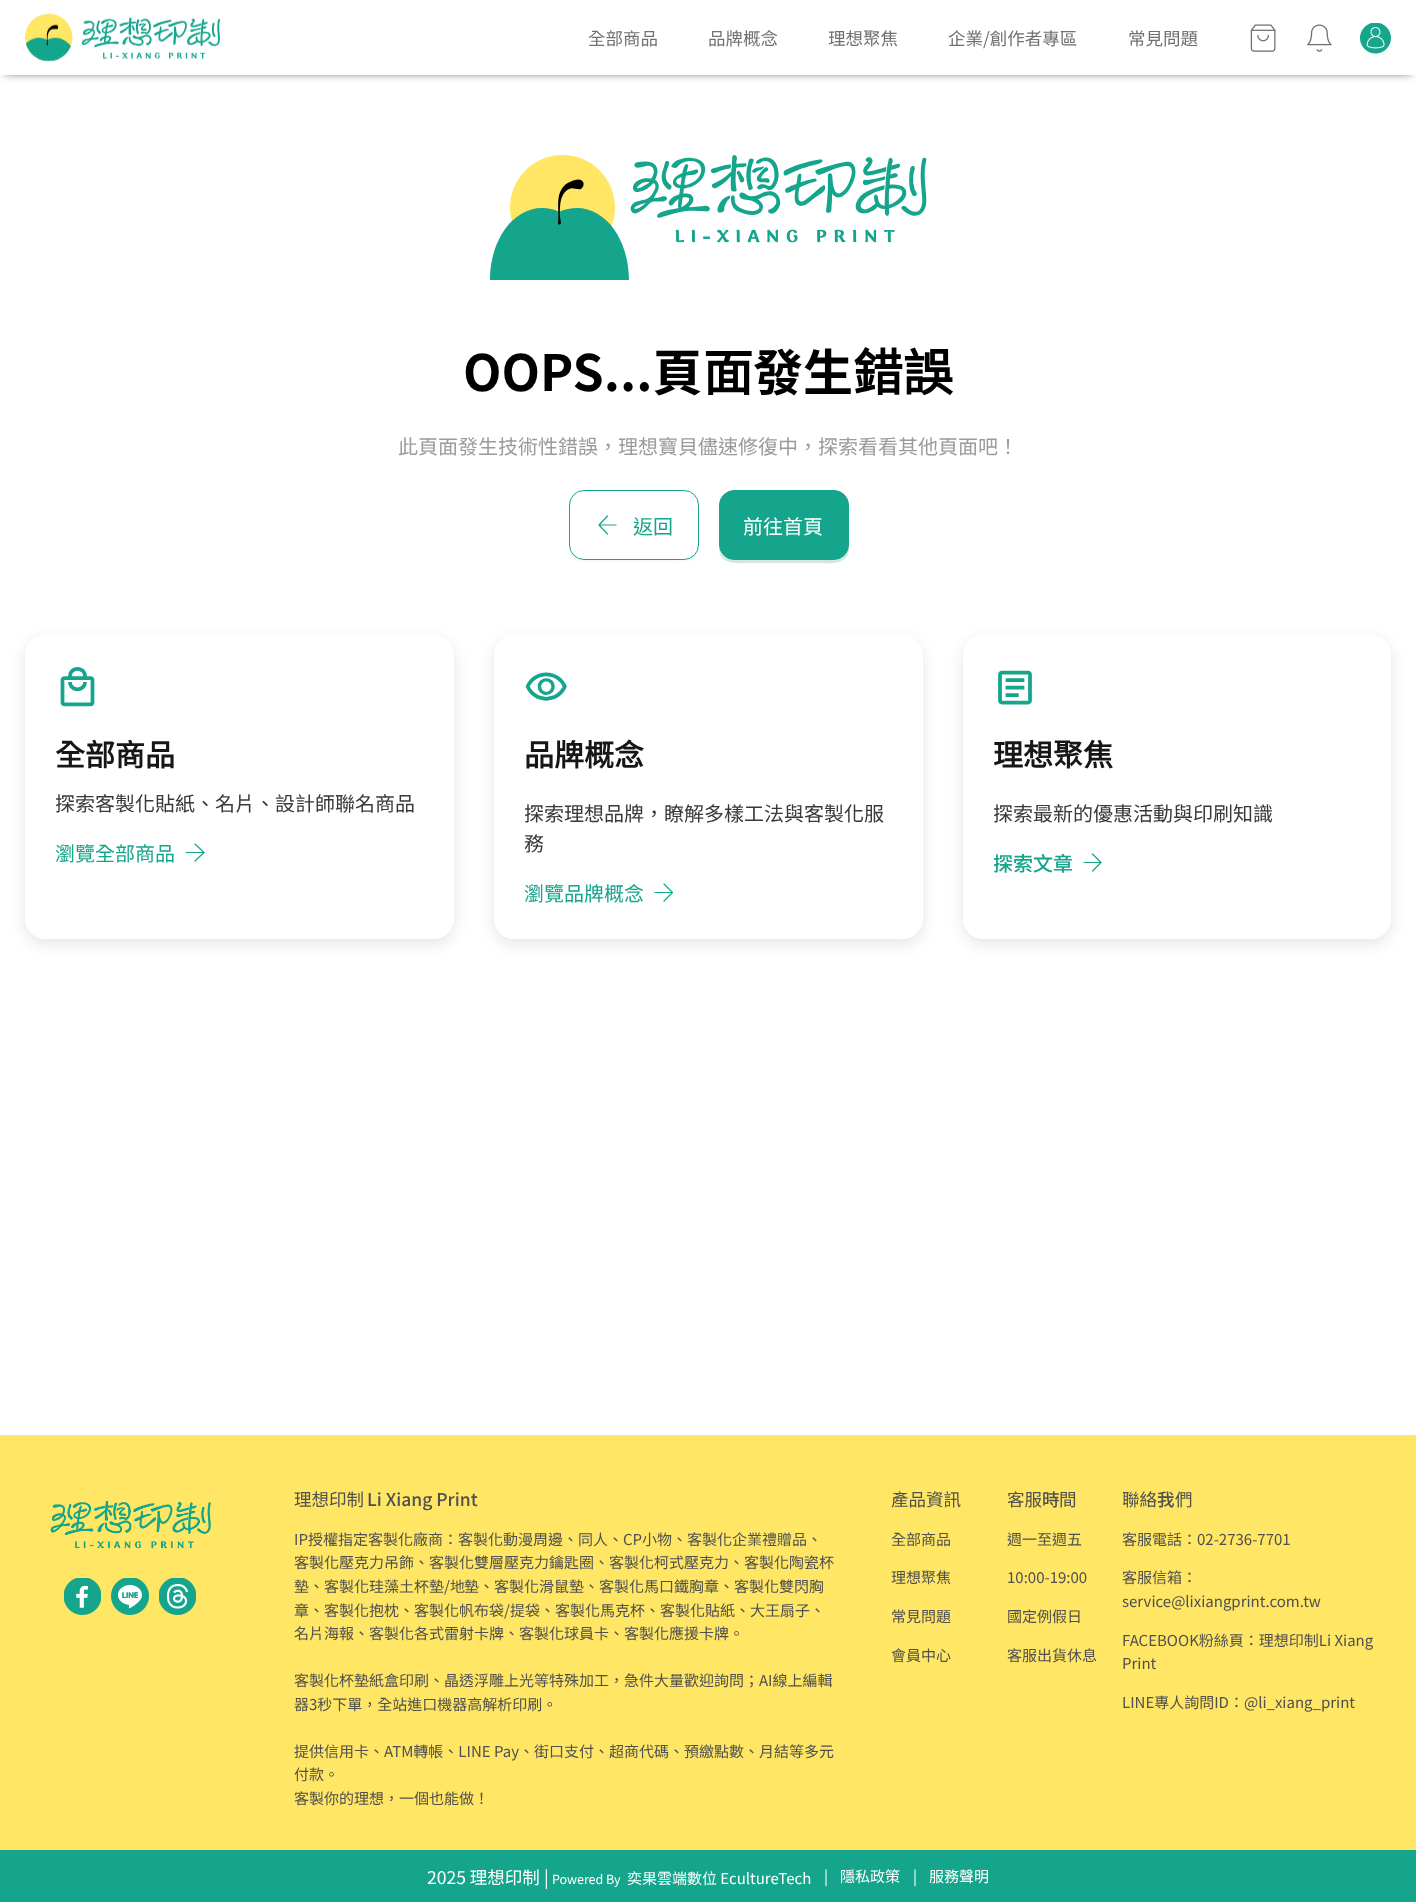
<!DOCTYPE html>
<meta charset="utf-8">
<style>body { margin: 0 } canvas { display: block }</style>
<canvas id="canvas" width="1416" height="1902"></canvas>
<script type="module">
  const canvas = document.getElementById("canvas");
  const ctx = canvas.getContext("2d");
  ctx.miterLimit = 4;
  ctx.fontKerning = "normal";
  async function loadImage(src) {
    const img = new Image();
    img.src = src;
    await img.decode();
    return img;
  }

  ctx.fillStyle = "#ffffff";
  ctx.fillRect(0, 0, 1416, 1902);
  ctx.save();
  ctx.beginPath();
  ctx.rect(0, 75, 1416, 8);
  ctx.clip();
  ctx.fillStyle = "#555555";
  ctx.filter = "blur(5px)";
  ctx.beginPath();
  ctx.rect(5, 8, 1406, 65);
  ctx.fill();
  ctx.filter = "none";
  ctx.restore();
  ctx.drawImage(await loadImage("img1.png"), 25, 13, 195, 49);
  ctx.font = "17.5px Noto Sans CJK TC";
  ctx.fillStyle = "#717171";
  ctx.fillText("全部商品", 588, 45);
  ctx.fillText("品牌概念", 708, 45);
  ctx.fillText("理想聚焦", 828, 45);
  ctx.fillText("企業/創作者專區", 948, 45);
  ctx.fillText("常見問題", 1128, 45);
  ctx.drawImage(await loadImage("img2.png"), 1250, 24, 26, 28);
  ctx.drawImage(await loadImage("img3.png"), 1307, 24, 25, 28);
  ctx.drawImage(await loadImage("img4.png"), 1360, 23, 31, 31);
  ctx.fillStyle = "#ffe664";
  ctx.beginPath();
  ctx.arc(562.5, 207.5, 52.5, 0, Math.PI * 2);
  ctx.fill();
  ctx.fillStyle = "#14a58c";
  ctx.beginPath();
  ctx.moveTo(577, 208);
  ctx.bezierCurveTo(571, 208, 565, 209, 559, 212);
  ctx.bezierCurveTo(554, 209, 548, 208, 542, 208);
  ctx.bezierCurveTo(513, 208, 490, 240, 490, 280);
  ctx.lineTo(629, 280);
  ctx.bezierCurveTo(629, 240, 606, 208, 577, 208);
  ctx.closePath();
  ctx.fill();
  ctx.fillStyle = "#000000";
  ctx.beginPath();
  ctx.moveTo(558, 223);
  ctx.bezierCurveTo(560, 210, 554, 194, 566, 184);
  ctx.bezierCurveTo(569, 182, 577, 178, 581, 180);
  ctx.bezierCurveTo(585, 182, 584, 187, 581, 189);
  ctx.bezierCurveTo(577, 190, 573, 187, 569, 189);
  ctx.bezierCurveTo(559, 194, 560, 208, 560, 217);
  ctx.lineTo(561, 223);
  ctx.bezierCurveTo(560, 225, 558, 225, 558, 223);
  ctx.closePath();
  ctx.fill();
  ctx.drawImage(await loadImage("img5.png"), 630, 155, 297, 88);
  ctx.font = "bold 50px Noto Sans TC";
  ctx.fillText("OOPS...頁", 463, 391);
  ctx.font = "bold 50px Noto Sans CJK TC";
  ctx.fillText("面", 703, 391);
  ctx.font = "bold 50px Noto Sans TC";
  ctx.fillText("發生", 753, 391);
  ctx.font = "bold 50px Noto Sans CJK TC";
  ctx.fillText("錯誤", 853, 391);
  ctx.font = "20px Noto Sans CJK TC";
  ctx.fillStyle = "#9b9b9b";
  ctx.fillText("此頁面發生技術性錯誤，理想寶貝儘速修復中，探索看看其他頁面吧！", 398, 454);
  ctx.fillStyle = "#fafafa";
  ctx.beginPath();
  ctx.moveTo(569, 548);
  ctx.bezierCurveTo(569, 566, 589, 563, 601, 563);
  ctx.lineTo(667, 563);
  ctx.bezierCurveTo(678, 563, 696, 566, 699, 551);
  ctx.lineTo(699, 505);
  ctx.lineTo(699, 545);
  ctx.bezierCurveTo(699, 553, 692, 560, 684, 560);
  ctx.lineTo(584, 560);
  ctx.bezierCurveTo(576, 560, 570, 555, 569, 548);
  ctx.closePath();
  ctx.fill();
  ctx.beginPath();
  ctx.roundRect(569.5, 490.5, 129, 69, 14.5);
  ctx.strokeStyle = "#14a58c";
  ctx.stroke();
  ctx.beginPath();
  ctx.moveTo(616, 525);
  ctx.lineTo(599, 525);
  ctx.moveTo(607.5, 534);
  ctx.lineTo(599, 525);
  ctx.lineTo(607.5, 516);
  ctx.lineWidth = 1.2;
  ctx.lineCap = "round";
  ctx.lineJoin = "round";
  ctx.stroke();
  ctx.fillStyle = "#14a58c";
  ctx.fillText("返回", 633, 534);
  ctx.fillStyle = "#d3e6df";
  ctx.beginPath();
  ctx.moveTo(719, 548);
  ctx.bezierCurveTo(719, 566, 739, 563, 751, 563);
  ctx.lineTo(817, 563);
  ctx.bezierCurveTo(828, 563, 846, 566, 849, 551);
  ctx.lineTo(849, 505);
  ctx.lineTo(849, 545);
  ctx.bezierCurveTo(849, 553, 842, 560, 834, 560);
  ctx.lineTo(734, 560);
  ctx.bezierCurveTo(726, 560, 720, 555, 719, 548);
  ctx.closePath();
  ctx.fill();
  ctx.fillStyle = "#14a58c";
  ctx.beginPath();
  ctx.roundRect(719.5, 490.5, 129, 69, 14.5);
  ctx.fill();
  ctx.lineWidth = 1;
  ctx.lineJoin = "miter";
  ctx.stroke();
  ctx.fillStyle = "#ffffff";
  ctx.fillText("前往首頁", 743, 534);
  ctx.fillStyle = "rgba(0, 0, 0, 0.1)";
  ctx.filter = "blur(7.5px)";
  ctx.beginPath();
  ctx.roundRect(25, 640, 429, 304, 20);
  ctx.fill();
  ctx.filter = "none";
  ctx.fillStyle = "#ffffff";
  ctx.beginPath();
  ctx.roundRect(25, 635, 429, 304, 20);
  ctx.fill();
  ctx.drawImage(await loadImage("img6.png"), 60, 667, 35, 40);
  ctx.font = "bold 30px Noto Sans CJK TC";
  ctx.fillStyle = "#161617";
  ctx.fillText("全部商品", 55, 766);
  ctx.font = "20px Noto Sans CJK TC";
  ctx.fillStyle = "#39393b";
  ctx.fillText("探索客製化貼紙、名片、設計師聯名商品", 55, 811);
  ctx.fillStyle = "#14a58c";
  ctx.fillText("瀏覽全部商品", 55, 861);
  ctx.beginPath();
  ctx.moveTo(186, 852.5);
  ctx.lineTo(204, 852.5);
  ctx.moveTo(195, 844);
  ctx.lineTo(204, 852.5);
  ctx.lineTo(195, 861);
  ctx.lineWidth = 1.2;
  ctx.lineJoin = "round";
  ctx.stroke();
  ctx.fillStyle = "rgba(0, 0, 0, 0.1)";
  ctx.filter = "blur(7.5px)";
  ctx.beginPath();
  ctx.roundRect(494, 640, 429, 304, 20);
  ctx.fill();
  ctx.filter = "none";
  ctx.fillStyle = "#ffffff";
  ctx.beginPath();
  ctx.roundRect(494, 635, 429, 304, 20);
  ctx.fill();
  ctx.drawImage(await loadImage("img7.png"), 525, 672, 42, 29);
  ctx.font = "bold 30px Noto Sans CJK TC";
  ctx.fillStyle = "#161617";
  ctx.fillText("品牌概念", 524, 766);
  ctx.font = "20px Noto Sans CJK TC";
  ctx.fillStyle = "#39393b";
  ctx.fillText("探索理想品牌，瞭解多樣工法與客製化服", 524, 821);
  ctx.fillText("務", 524, 851);
  ctx.fillStyle = "#14a58c";
  ctx.fillText("瀏覽品牌概念", 524, 901);
  ctx.beginPath();
  ctx.moveTo(655, 892.5);
  ctx.lineTo(672.5, 892.5);
  ctx.moveTo(664, 884);
  ctx.lineTo(672.5, 892.5);
  ctx.lineTo(664, 901);
  ctx.stroke();
  ctx.fillStyle = "rgba(0, 0, 0, 0.1)";
  ctx.filter = "blur(7.5px)";
  ctx.beginPath();
  ctx.roundRect(963, 640, 428, 304, 20);
  ctx.fill();
  ctx.filter = "none";
  ctx.fillStyle = "#ffffff";
  ctx.beginPath();
  ctx.roundRect(963, 635, 428, 304, 20);
  ctx.fill();
  ctx.drawImage(await loadImage("img8.png"), 998, 670, 34, 35);
  ctx.font = "bold 30px Noto Sans CJK TC";
  ctx.fillStyle = "#161617";
  ctx.fillText("理想聚焦", 993, 766);
  ctx.font = "20px Noto Sans CJK TC";
  ctx.fillStyle = "#39393b";
  ctx.fillText("探索最新的優惠活動與印刷知識", 993, 821);
  ctx.font = "500 20px Noto Sans TC";
  ctx.fillStyle = "#14a58c";
  ctx.fillText("探索文章", 993, 871);
  ctx.beginPath();
  ctx.moveTo(1084, 862.5);
  ctx.lineTo(1101, 862.5);
  ctx.moveTo(1092.5, 854);
  ctx.lineTo(1101, 862.5);
  ctx.lineTo(1092.5, 871);
  ctx.stroke();
  ctx.fillStyle = "#ffe664";
  ctx.fillRect(0, 1435, 1416, 415);
  ctx.drawImage(await loadImage("img9.png"), 50, 1500, 161, 49);
  ctx.drawImage(await loadImage("img10.png"), 64, 1578, 37, 37);
  ctx.drawImage(await loadImage("img11.png"), 111, 1578, 38, 37);
  ctx.drawImage(await loadImage("img12.png"), 159, 1578, 37, 37);
  ctx.font = "17.5px Noto Sans CJK TC";
  ctx.fillStyle = "#505050";
  ctx.fillText("理想印制", 294, 1506);
  ctx.font = "500 17.5px Noto Sans TC";
  ctx.fillText("Li Xiang Print", 367, 1506);
  ctx.font = "15px Noto Sans CJK TC";
  ctx.fillText("IP授權指定客製化廠商：客製化動漫周邊、同人、CP小物、客製化企業禮贈品、", 294, 1545);
  ctx.fillText("客製化壓克力吊飾、客製化雙層壓克力鑰匙圈、客製化柯式壓克力、客製化陶瓷杯", 294, 1568);
  ctx.font = "15px Noto Sans TC";
  ctx.fillText("墊", 294, 1592);
  ctx.font = "15px Noto Sans CJK TC";
  ctx.fillText("、客製化珪藻土杯", 309, 1592);
  ctx.font = "15px Noto Sans TC";
  ctx.fillText("墊", 429, 1592);
  ctx.font = "15px Noto Sans CJK TC";
  ctx.fillText("/地", 444, 1592);
  ctx.font = "15px Noto Sans TC";
  ctx.fillText("墊", 464, 1592);
  ctx.font = "15px Noto Sans CJK TC";
  ctx.fillText("、客製化滑", 479, 1592);
  ctx.font = "15px Noto Sans TC";
  ctx.fillText("鼠墊", 554, 1592);
  ctx.font = "15px Noto Sans CJK TC";
  ctx.fillText("、客製化馬口鐵", 584, 1592);
  ctx.font = "15px Noto Sans TC";
  ctx.fillText("胸", 689, 1592);
  ctx.font = "15px Noto Sans CJK TC";
  ctx.fillText("章、客製化雙閃", 704, 1592);
  ctx.font = "15px Noto Sans TC";
  ctx.fillText("胸", 809, 1592);
  ctx.font = "15px Noto Sans CJK TC";
  ctx.fillText("章、客製化抱枕、客製化帆布袋/提袋、客製化馬克杯、客製化貼紙、大王扇子、", 294, 1616);
  ctx.fillText("名片海報、客製化各式雷射卡牌、客製化球員卡、客製化應援卡牌。", 294, 1639);
  ctx.fillText("客製化杯", 294, 1686);
  ctx.font = "15px Noto Sans TC";
  ctx.fillText("墊", 354, 1686);
  ctx.font = "15px Noto Sans CJK TC";
  ctx.fillText("紙盒印刷、晶透浮雕上光等特殊加工，急件大量歡迎詢問；AI線上編輯", 369, 1686);
  ctx.fillText("器3秒下單，全站進口機器高解析印刷。", 294, 1710);
  ctx.fillText("提供信用卡、ATM轉帳、LINE Pay、街口支付、超商代碼、預繳點數、月結等多元", 294, 1757);
  ctx.fillText("付款。", 294, 1780);
  ctx.fillText("客製你的理想，一個也能做！", 294, 1804);
  ctx.font = "17.5px Noto Sans CJK TC";
  ctx.fillText("產品資訊", 891, 1506);
  ctx.font = "15px Noto Sans CJK TC";
  ctx.fillText("全部商品", 891, 1545);
  ctx.fillText("理想聚焦", 891, 1583);
  ctx.fillText("常見問題", 891, 1622);
  ctx.fillText("會員中心", 891, 1661);
  ctx.font = "17.5px Noto Sans CJK TC";
  ctx.fillText("客服", 1007, 1506);
  ctx.font = "500 17.5px Noto Sans TC";
  ctx.fillText("時", 1042, 1506);
  ctx.font = "17.5px Noto Sans CJK TC";
  ctx.fillText("間", 1059, 1506);
  ctx.font = "15px Noto Sans TC";
  ctx.fillText("週一至週五", 1007, 1545);
  ctx.fillText("10:00-19:00", 1007, 1583);
  ctx.font = "15px Noto Sans CJK TC";
  ctx.fillText("國定例假日", 1007, 1622);
  ctx.fillText("客服出貨休息", 1007, 1661);
  ctx.font = "17.5px Noto Sans CJK TC";
  ctx.fillText("聯絡", 1122, 1506);
  ctx.font = "500 17.5px Noto Sans TC";
  ctx.fillText("我", 1157, 1506);
  ctx.font = "17.5px Noto Sans CJK TC";
  ctx.fillText("們", 1175, 1506);
  ctx.font = "15px Noto Sans CJK TC";
  ctx.fillText("客服電話：02-2736-7701", 1122, 1545);
  ctx.fillText("客服信箱：", 1122, 1583);
  ctx.fillText("service@lixiangprint.com.tw", 1122, 1607);
  ctx.fillText("FACEBOOK粉絲頁：理想印制Li Xiang", 1122, 1646);
  ctx.fillText("Print", 1122, 1669);
  ctx.fillText("LINE專人詢問ID：@li_xiang_print", 1122, 1708);
  ctx.fillStyle = "#14a58c";
  ctx.fillRect(0, 1850, 1416, 52);
  ctx.font = "17.5px Noto Sans CJK TC";
  ctx.fillStyle = "#ffffff";
  ctx.fillText("2025 理想印制", 427, 1884);
  ctx.font = "17.5px Noto Sans TC";
  ctx.fillText("|", 544, 1884);
  ctx.font = "12.5px Noto Sans TC";
  ctx.fillText("Powered By", 552, 1884);
  ctx.font = "15px Noto Sans CJK TC";
  ctx.fillText("奕果雲端數位 EcultureTech", 627, 1884);
  ctx.font = "15px Noto Sans TC";
  ctx.fillText("|", 824, 1882);
  ctx.fillText("隱私政策", 840, 1882);
  ctx.fillText("|", 913, 1882);
  ctx.font = "15px Noto Sans CJK TC";
  ctx.fillText("服務聲明", 929, 1882);
</script>
